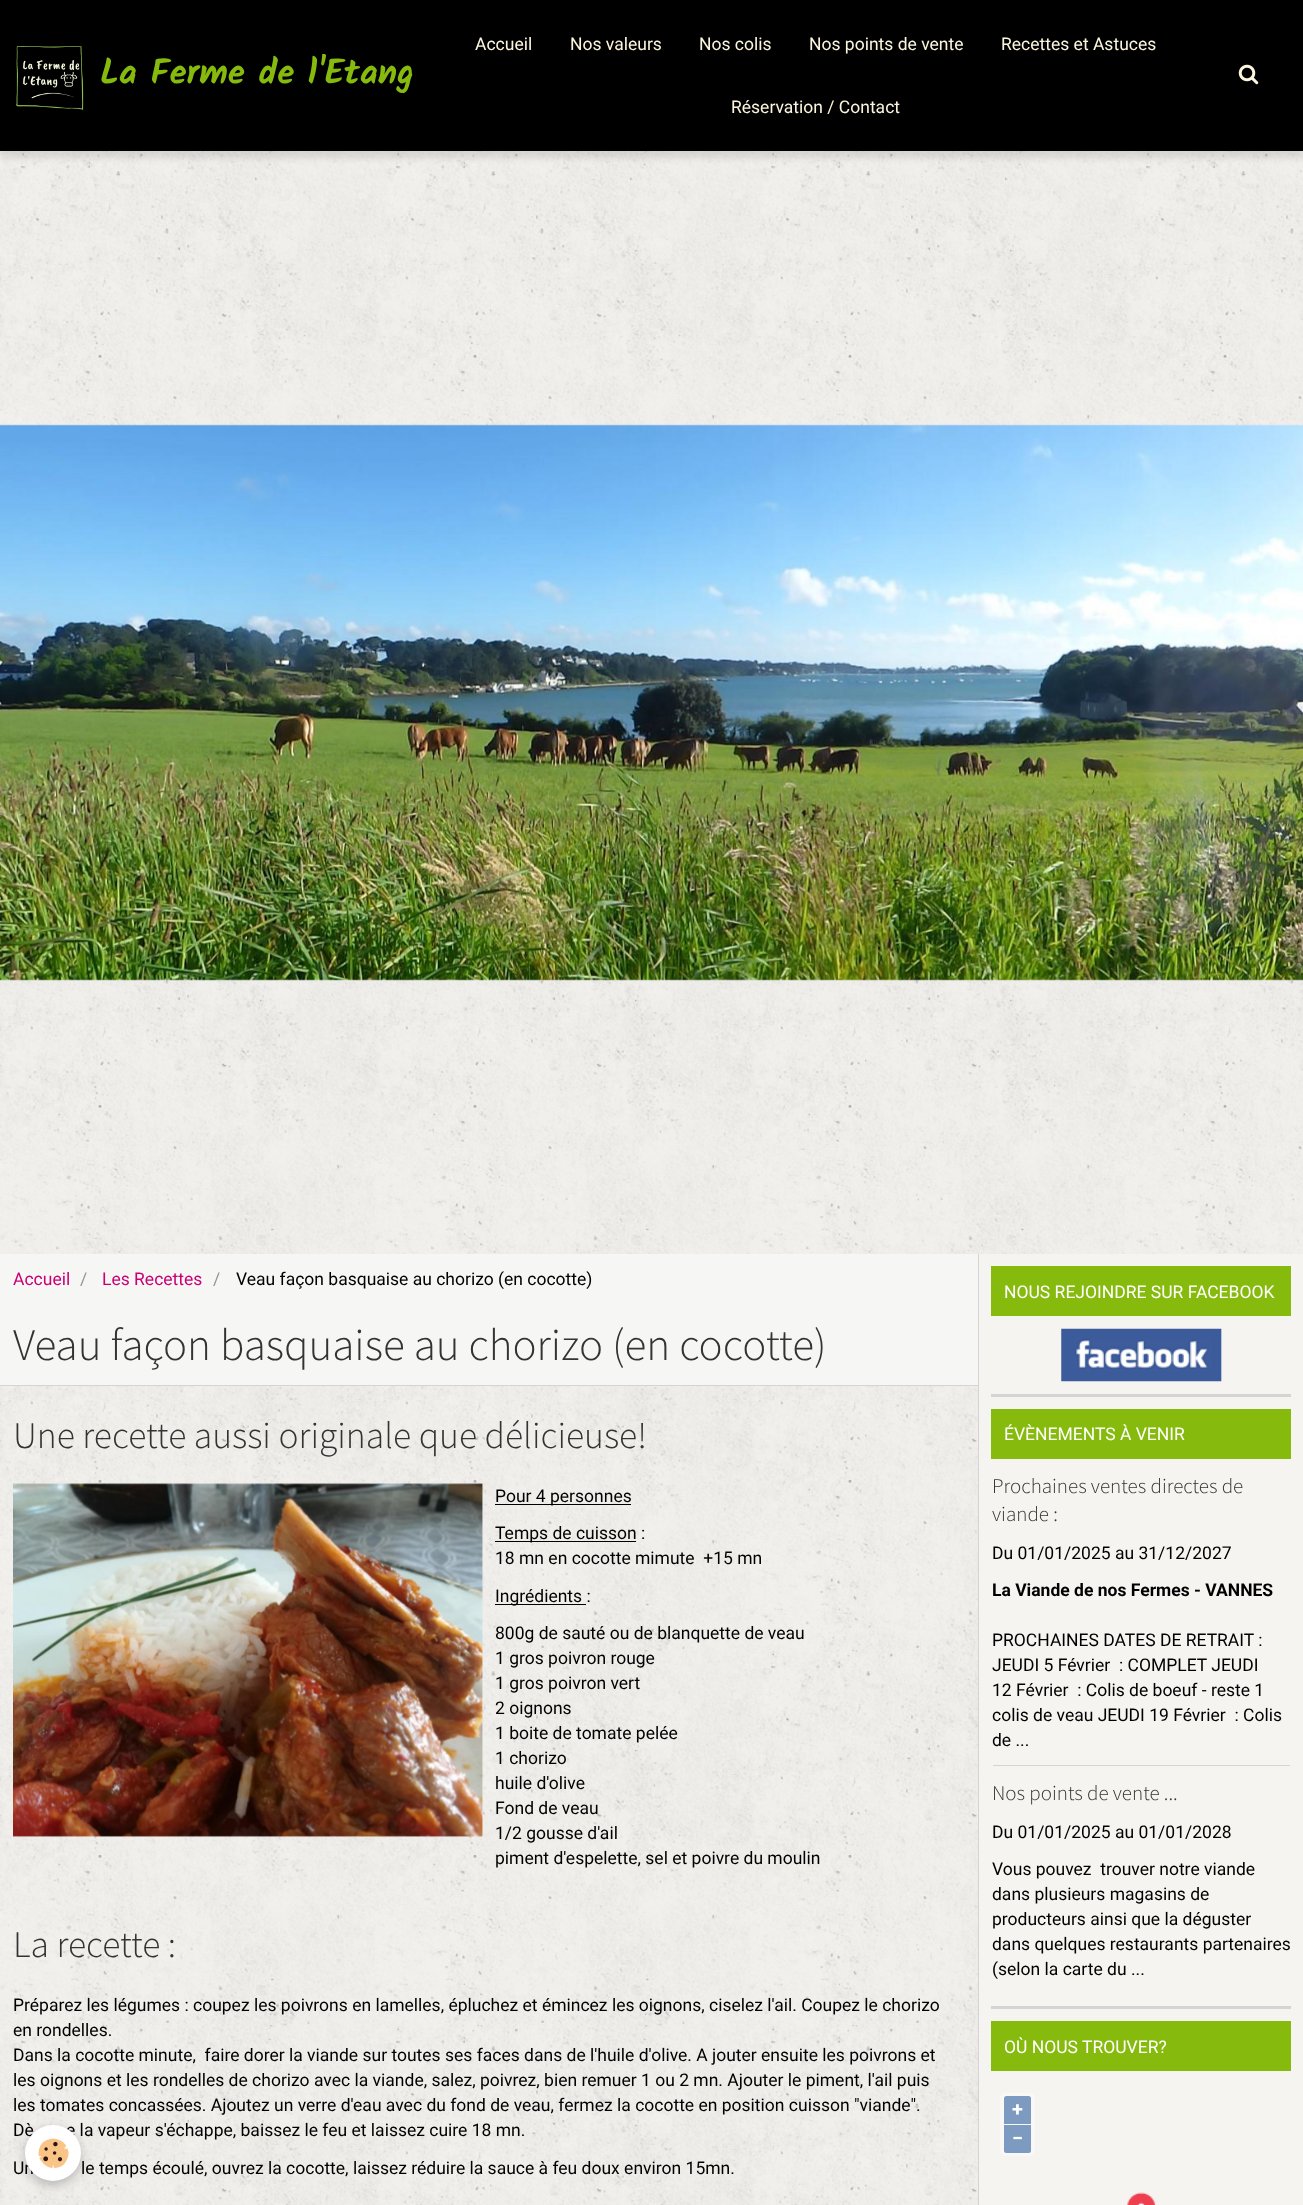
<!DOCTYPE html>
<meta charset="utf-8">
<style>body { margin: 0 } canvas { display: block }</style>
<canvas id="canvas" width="1303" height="2205"></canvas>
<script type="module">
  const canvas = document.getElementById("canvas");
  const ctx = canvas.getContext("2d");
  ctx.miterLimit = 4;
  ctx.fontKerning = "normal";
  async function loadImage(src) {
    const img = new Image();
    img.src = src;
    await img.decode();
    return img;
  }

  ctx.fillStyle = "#f5f4f1";
  ctx.fillRect(0, 0, 1303, 2205);
  ctx.drawImage(await loadImage("img1.png"), 0, 151, 1303, 2054);
  ctx.fillStyle = "rgba(0, 0, 0, 0.1)";
  ctx.filter = "blur(3px)";
  ctx.beginPath();
  ctx.rect(0, 6, 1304, 152);
  ctx.fill();
  ctx.filter = "none";
  ctx.fillStyle = "#000000";
  ctx.fillRect(0, 0, 1303, 151);
  ctx.drawImage(await loadImage("img2.png"), 16, 46, 68, 64);
  ctx.save();
  ctx.beginPath();
  ctx.rect(100, 54, 314, 42);
  ctx.clip();
  ctx.font = "bold 35px Kalam";
  ctx.fillStyle = "#86bb0d";
  ctx.fillText("La Ferme de l'Etang", 100, 84);
  ctx.restore();
  ctx.font = "17.5px Roboto";
  ctx.fillStyle = "#fcf5de";
  ctx.fillText("Accueil", 475, 50);
  ctx.fillText("Nos valeurs", 570, 50);
  ctx.fillText("Nos colis", 699, 50);
  ctx.fillText("Nos points de vente", 809, 50);
  ctx.fillText("Recettes et Astuces", 1001, 50);
  ctx.fillText("Réservation / Contact", 731, 113);
  ctx.drawImage(await loadImage("img3.png"), 1238, 64, 21, 21);
  ctx.drawImage(await loadImage("img4.png"), 0, 424, 1303, 557);
  ctx.fillStyle = "#f6f6f5";
  ctx.fillRect(0, 1254, 978, 131);
  ctx.fillStyle = "#c90076";
  ctx.fillText("Accueil", 13, 1285);
  ctx.fillStyle = "#989591";
  ctx.fillText("/", 80, 1285);
  ctx.fillStyle = "#c90076";
  ctx.fillText("Les Recettes", 102, 1285);
  ctx.fillStyle = "#989591";
  ctx.fillText("/", 213, 1285);
  ctx.fillStyle = "#000000";
  ctx.fillText("Veau façon basquaise au chorizo (en cocotte)", 236, 1285);
  ctx.fillStyle = "#d4d4d4";
  ctx.fillRect(0, 1385, 978, 1);
  ctx.font = "300 45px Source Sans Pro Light";
  ctx.fillStyle = "#333333";
  ctx.fillText("Veau façon basquaise au chorizo (en cocotte)", 13, 1360);
  ctx.font = "300 37.5px Source Sans Pro Light";
  ctx.fillText("Une recette aussi originale que délicieuse!", 13, 1448);
  ctx.drawImage(await loadImage("img5.png"), 13, 1483, 470, 354);
  ctx.fillStyle = "#000000";
  ctx.fillRect(495, 1504, 136, 1);
  ctx.font = "17.5px Roboto";
  ctx.fillText("Pour 4 personnes", 495, 1502);
  ctx.fillRect(495, 1541, 141, 1);
  ctx.fillText("Temps de cuisson :", 495, 1539);
  ctx.fillText("18 mn en cocotte mimute  +15 mn", 495, 1564);
  ctx.fillRect(495, 1604, 91, 1);
  ctx.fillText("Ingrédients :", 495, 1602);
  ctx.fillText("800g de sauté ou de blanquette de veau", 495, 1639);
  ctx.fillText("1 gros poivron rouge", 495, 1664);
  ctx.fillText("1 gros poivron vert", 495, 1689);
  ctx.fillText("2 oignons", 495, 1714);
  ctx.fillText("1 boite de tomate pelée", 495, 1739);
  ctx.fillText("1 chorizo", 495, 1764);
  ctx.fillText("huile d'olive", 495, 1789);
  ctx.fillText("Fond de veau", 495, 1814);
  ctx.fillText("1/2 gousse d'ail", 495, 1839);
  ctx.fillText("piment d'espelette, sel et poivre du moulin", 495, 1864);
  ctx.font = "300 37.5px Source Sans Pro Light";
  ctx.fillStyle = "#333333";
  ctx.fillText("La recette :", 13, 1957);
  ctx.font = "17.5px Roboto";
  ctx.fillStyle = "#000000";
  ctx.fillText("Préparez les légumes : coupez les poivrons en lamelles, épluchez et émincez les oignons, ciselez l'ail. Coupez le chorizo", 13, 2011);
  ctx.fillText("en rondelles.", 13, 2036);
  ctx.fillText("Dans la cocotte minute,  faire dorer la viande sur toutes ses faces dans de l'huile d'olive. A jouter ensuite les poivrons et", 13, 2061);
  ctx.fillText("les oignons et les rondelles de chorizo avec la viande, salez, poivrez, bien remuer 1 ou 2 mn. Ajouter le piment, l'ail puis", 13, 2086);
  ctx.fillText("les tomates concassées. Ajoutez un verre d'eau avec du fond de veau, fermez la cocotte en position cuisson \"viande\".", 13, 2111);
  ctx.fillText("Dè", 13, 2136);
  ctx.fillText("e la vapeur s'échappe, baissez le feu et laissez cuire 18 mn.", 66, 2136);
  ctx.fillText("Un", 13, 2174);
  ctx.fillText("le temps écoulé, ouvrez la cocotte, laissez réduire la sauce à feu doux environ 15mn.", 81, 2174);
  ctx.fillStyle = "#f5f4f1";
  ctx.fillRect(979, 1254, 324, 951);
  ctx.fillStyle = "#d4d4d4";
  ctx.fillRect(978, 1254, 1, 951);
  ctx.fillStyle = "#86bb0d";
  ctx.fillRect(991, 1266, 300, 50);
  ctx.fillStyle = "#ffffff";
  ctx.fillText("NOUS REJOINDRE SUR FACEBOOK", 1004, 1298);
  ctx.drawImage(await loadImage("img6.png"), 1061, 1328, 161, 54);
  ctx.fillStyle = "#d4d4d4";
  ctx.fillRect(991, 1394, 300, 3);
  ctx.fillStyle = "#86bb0d";
  ctx.fillRect(991, 1409, 300, 50);
  ctx.fillStyle = "#ffffff";
  ctx.fillText("ÉVÈNEMENTS À VENIR", 1004, 1440);
  ctx.fillStyle = "#d4d4d4";
  ctx.fillRect(993, 1765, 297, 1);
  ctx.font = "300 21px Source Sans Pro Light";
  ctx.fillStyle = "#333333";
  ctx.fillText("Prochaines ventes directes de", 992, 1493);
  ctx.fillText("viande :", 992, 1521);
  ctx.font = "17.5px Roboto";
  ctx.fillStyle = "#000000";
  ctx.fillText("Du 01/01/2025 au 31/12/2027", 992, 1559);
  ctx.font = "bold 17.5px Roboto";
  ctx.fillText("La Viande de nos Fermes - VANNES", 992, 1596);
  ctx.font = "17.5px Roboto";
  ctx.fillText("PROCHAINES DATES DE RETRAIT :", 992, 1646);
  ctx.fillText("JEUDI 5 Février  : COMPLET JEUDI", 992, 1671);
  ctx.fillText("12 Février  : Colis de boeuf - reste 1", 992, 1696);
  ctx.fillText("colis de veau JEUDI 19 Février  : Colis", 992, 1721);
  ctx.fillText("de ...", 992, 1746);
  ctx.font = "300 21px Source Sans Pro Light";
  ctx.fillStyle = "#333333";
  ctx.fillText("Nos points de vente ...", 992, 1800);
  ctx.font = "17.5px Roboto";
  ctx.fillStyle = "#000000";
  ctx.fillText("Du 01/01/2025 au 01/01/2028", 992, 1838);
  ctx.fillText("Vous pouvez  trouver notre viande", 992, 1875);
  ctx.fillText("dans plusieurs magasins de", 992, 1900);
  ctx.fillText("producteurs ainsi que la déguster", 992, 1925);
  ctx.fillText("dans quelques restaurants partenaires", 992, 1950);
  ctx.fillText("(selon la carte du ...", 992, 1975);
  ctx.fillStyle = "#d4d4d4";
  ctx.fillRect(991, 2006, 300, 3);
  ctx.fillStyle = "#86bb0d";
  ctx.fillRect(991, 2021, 300, 50);
  ctx.fillStyle = "#ffffff";
  ctx.fillText("OÙ NOUS TROUVER?", 1004, 2053);
  ctx.fillStyle = "#f9f8f7";
  ctx.beginPath();
  ctx.roundRect(1000, 2093, 35, 63, 5);
  ctx.fill();
  ctx.fillStyle = "#7d9ac0";
  ctx.beginPath();
  ctx.roundRect(1004, 2096, 27, 28, [2.5, 2.5, 0, 0]);
  ctx.fill();
  ctx.font = "bold 20px Roboto";
  ctx.fillStyle = "#ffffff";
  ctx.fillText("+", 1012, 2116);
  ctx.fillStyle = "#7d9ac0";
  ctx.beginPath();
  ctx.roundRect(1004, 2125, 27, 28, [0, 0, 2.5, 2.5]);
  ctx.fill();
  ctx.fillStyle = "#ffffff";
  ctx.fillText("−", 1012, 2145);
  ctx.drawImage(await loadImage("img7.png"), 1127, 2192, 29, 13);
  ctx.fillStyle = "rgba(0, 0, 0, 0.24)";
  ctx.filter = "blur(6px)";
  ctx.beginPath();
  ctx.roundRect(25, 2129, 56, 56, 28);
  ctx.fill();
  ctx.filter = "none";
  ctx.fillStyle = "#ffffff";
  ctx.beginPath();
  ctx.arc(53, 2153, 28, 0, Math.PI * 2);
  ctx.fill();
  ctx.drawImage(await loadImage("img8.png"), 38, 2138, 31, 30);
</script>
